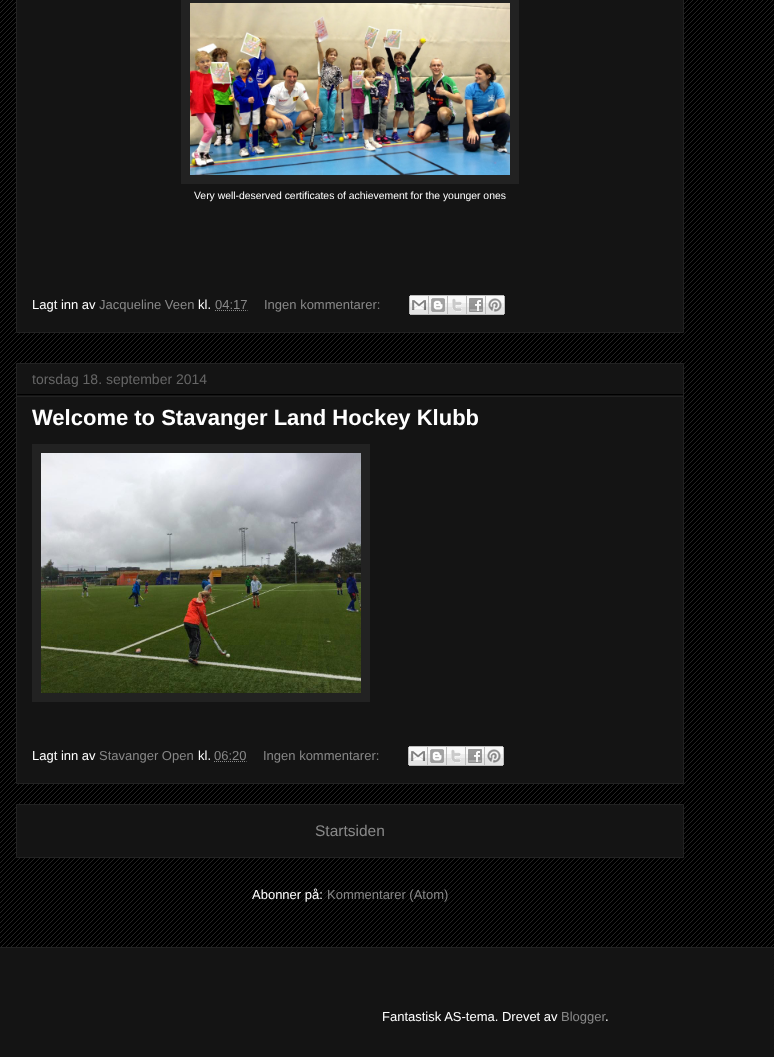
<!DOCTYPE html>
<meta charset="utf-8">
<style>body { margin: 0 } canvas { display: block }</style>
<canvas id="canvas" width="774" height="1057"></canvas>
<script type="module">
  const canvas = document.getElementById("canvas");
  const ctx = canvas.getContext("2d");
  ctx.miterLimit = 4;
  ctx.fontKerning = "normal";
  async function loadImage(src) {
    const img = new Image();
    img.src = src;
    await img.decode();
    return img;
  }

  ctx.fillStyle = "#000000";
  ctx.fillRect(0, 0, 774, 1057);
  ctx.drawImage(await loadImage("img1.png"), 0, 0, 774, 947);
  ctx.fillStyle = "#141414";
  ctx.beginPath();
  ctx.rect(16.5, -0.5, 667, 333);
  ctx.fill();
  ctx.strokeStyle = "#222222";
  ctx.stroke();
  ctx.fillStyle = "#222222";
  ctx.fillRect(181, 0, 338, 184);
  ctx.drawImage(await loadImage("img2.png"), 190, 3, 320, 172);
  ctx.font = "10.4px Liberation Sans";
  ctx.fillStyle = "#ffffff";
  ctx.fillText("Very well-deserved certificates of achievement for the younger ones", 194, 199);
  ctx.font = "13px Liberation Sans";
  ctx.fillText("Lagt inn av", 32, 309);
  ctx.fillStyle = "#888888";
  ctx.fillText("Jacqueline Veen", 99, 309);
  ctx.fillStyle = "#ffffff";
  ctx.fillText("kl.", 198, 309);
  ctx.fillStyle = "#888888";
  ctx.fillText("04:17", 215, 309);
  ctx.beginPath();
  ctx.moveTo(215, 310.5);
  ctx.lineTo(247.5, 310.5);
  ctx.strokeStyle = "#888888";
  ctx.setLineDash([1, 1]);
  ctx.stroke();
  ctx.fillText("Ingen kommentarer:", 264, 309);
  ctx.drawImage(await loadImage("img3.png"), 409, 295, 20, 20);
  ctx.drawImage(await loadImage("img4.png"), 429, 295, 19, 20);
  ctx.drawImage(await loadImage("img5.png"), 448, 295, 19, 20);
  ctx.drawImage(await loadImage("img6.png"), 467, 295, 19, 20);
  ctx.drawImage(await loadImage("img7.png"), 486, 295, 19, 20);
  ctx.fillStyle = "#141414";
  ctx.beginPath();
  ctx.rect(16.5, 363.5, 667, 420);
  ctx.fill();
  ctx.strokeStyle = "#222222";
  ctx.setLineDash([]);
  ctx.stroke();
  ctx.fillStyle = "#000000";
  ctx.fillRect(17, 394, 666, 1);
  ctx.font = "14px Liberation Sans";
  ctx.fillStyle = "#666666";
  ctx.fillText("torsdag 18. september 2014", 32, 384);
  ctx.fillStyle = "#222222";
  ctx.fillRect(17, 396, 666, 1);
  ctx.font = "bold 22px Liberation Sans";
  ctx.fillStyle = "#ffffff";
  ctx.fillText("Welcome to Stavanger Land Hockey Klubb", 32, 425);
  ctx.fillStyle = "#222222";
  ctx.fillRect(32, 444, 338, 258);
  ctx.drawImage(await loadImage("img8.png"), 41, 453, 320, 240);
  ctx.font = "13px Liberation Sans";
  ctx.fillStyle = "#ffffff";
  ctx.fillText("Lagt inn av", 32, 760);
  ctx.fillStyle = "#888888";
  ctx.fillText("Stavanger Open", 99, 760);
  ctx.fillStyle = "#ffffff";
  ctx.fillText("kl.", 198, 760);
  ctx.fillStyle = "#888888";
  ctx.fillText("06:20", 214, 760);
  ctx.beginPath();
  ctx.moveTo(214, 761.5);
  ctx.lineTo(246.5, 761.5);
  ctx.strokeStyle = "#888888";
  ctx.setLineDash([1, 1]);
  ctx.stroke();
  ctx.fillText("Ingen kommentarer:", 263, 760);
  ctx.drawImage(await loadImage("img3.png"), 408, 746, 20, 20);
  ctx.drawImage(await loadImage("img4.png"), 428, 746, 19, 20);
  ctx.drawImage(await loadImage("img5.png"), 447, 746, 19, 20);
  ctx.drawImage(await loadImage("img6.png"), 466, 746, 19, 20);
  ctx.drawImage(await loadImage("img7.png"), 485, 746, 19, 20);
  ctx.fillStyle = "#141414";
  ctx.beginPath();
  ctx.rect(16.5, 804.5, 667, 53);
  ctx.fill();
  ctx.strokeStyle = "#222222";
  ctx.setLineDash([]);
  ctx.stroke();
  ctx.font = "15.5px Liberation Sans";
  ctx.fillStyle = "#888888";
  ctx.fillText("Startsiden", 315, 836);
  ctx.font = "13px Liberation Sans";
  ctx.fillStyle = "#ffffff";
  ctx.fillText("Abonner på:", 252, 899);
  ctx.fillStyle = "#888888";
  ctx.fillText("Kommentarer (Atom)", 327, 899);
  ctx.fillStyle = "#141414";
  ctx.fillRect(0, 948, 774, 109);
  ctx.fillStyle = "#222222";
  ctx.fillRect(0, 947, 774, 1);
  ctx.fillStyle = "#ffffff";
  ctx.fillText("Fantastisk AS-tema. Drevet av", 382, 1021);
  ctx.fillStyle = "#888888";
  ctx.fillText("Blogger", 561, 1021);
  ctx.fillStyle = "#ffffff";
  ctx.fillText(".", 605, 1021);
</script>
